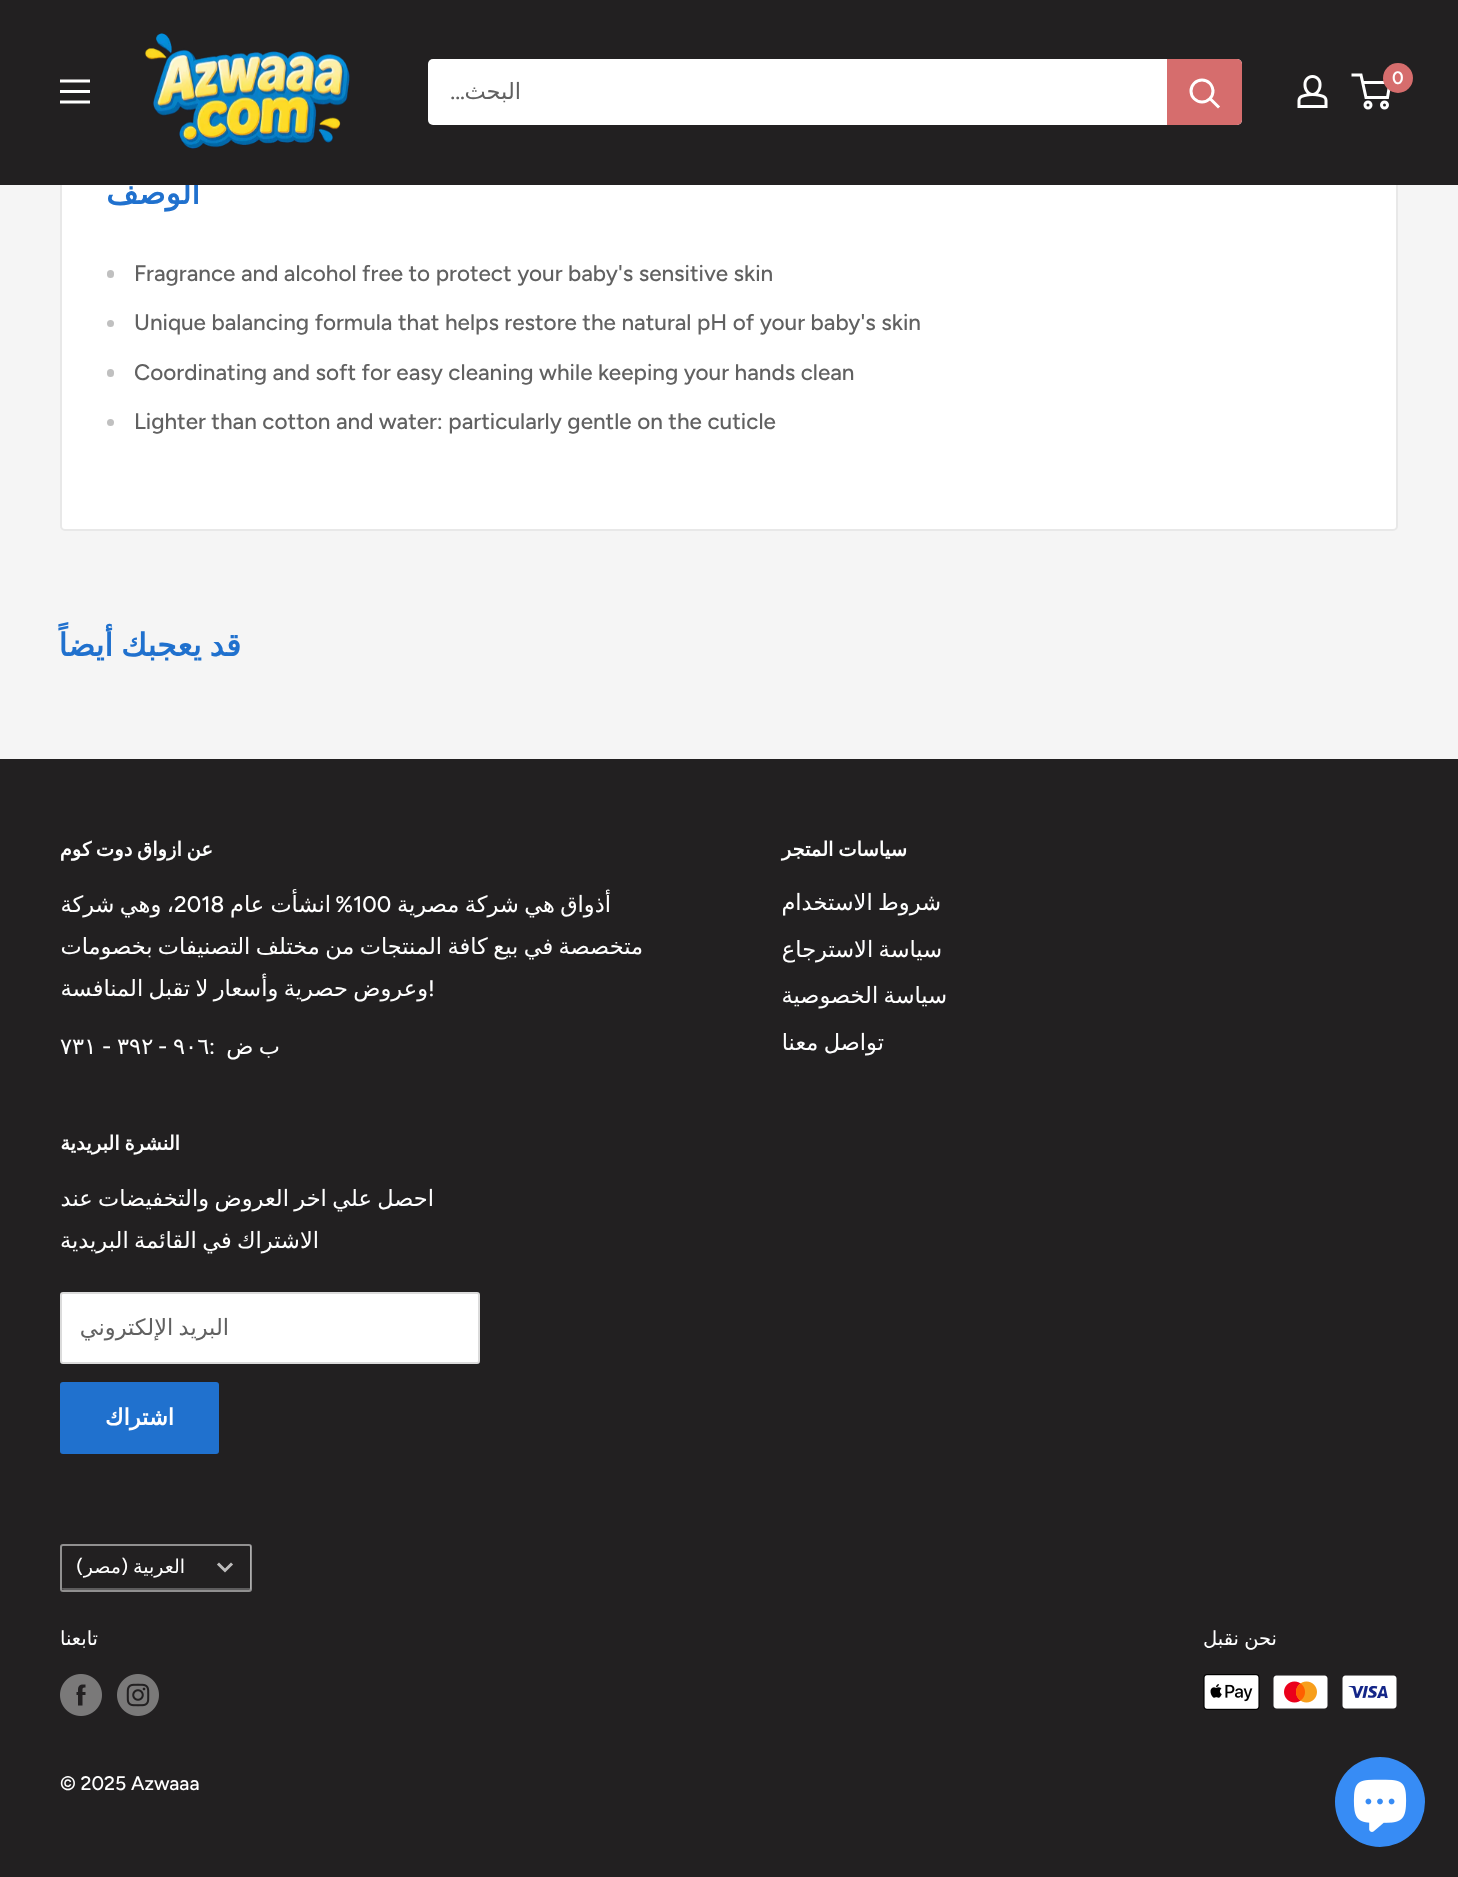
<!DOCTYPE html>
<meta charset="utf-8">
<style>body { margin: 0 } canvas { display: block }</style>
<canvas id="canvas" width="1458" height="1877"></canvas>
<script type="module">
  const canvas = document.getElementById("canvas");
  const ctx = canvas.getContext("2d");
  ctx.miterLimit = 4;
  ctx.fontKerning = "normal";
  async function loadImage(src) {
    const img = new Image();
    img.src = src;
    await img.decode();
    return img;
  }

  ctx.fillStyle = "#f5f5f5";
  ctx.fillRect(0, 0, 1458, 1877);
  ctx.fillStyle = "#ffffff";
  ctx.beginPath();
  ctx.roundRect(61, 124, 1336, 406, 4);
  ctx.fill();
  ctx.strokeStyle = "#e8e8e8";
  ctx.lineWidth = 2;
  ctx.stroke();
  ctx.direction = "rtl";
  ctx.font = "bold 31.5px DejaVu Sans";
  ctx.fillStyle = "#2071ce";
  ctx.fillText("الوصف", 200, 204);
  ctx.fillStyle = "#222021";
  ctx.fillRect(0, 0, 1458, 185);
  ctx.beginPath();
  ctx.moveTo(1362.5, 82.5);
  ctx.lineTo(1390, 82.5);
  ctx.lineTo(1387.5, 97.5);
  ctx.lineTo(1366, 97.5);
  ctx.lineTo(1361, 75);
  ctx.lineTo(1351.5, 75);
  ctx.strokeStyle = "#ffffff";
  ctx.lineWidth = 3;
  ctx.stroke();
  ctx.fillStyle = "#d66d6d";
  ctx.beginPath();
  ctx.arc(1398, 78, 15, 0, Math.PI * 2);
  ctx.fill();
  ctx.direction = "ltr";
  ctx.font = "600 18px Figtree";
  ctx.fillStyle = "#ffffff";
  ctx.fillText("0", 1392, 84);
  ctx.beginPath();
  ctx.arc(1368, 105, 3, 0, Math.PI * 2);
  ctx.stroke();
  ctx.beginPath();
  ctx.arc(1384.5, 105, 3, 0, Math.PI * 2);
  ctx.stroke();
  ctx.drawImage(await loadImage("img1.png"), 1297, 75, 31, 33);
  ctx.beginPath();
  ctx.roundRect(428, 59, 814, 66, 5);
  ctx.fill();
  ctx.fillStyle = "#d66d6d";
  ctx.beginPath();
  ctx.roundRect(1167, 59, 75, 66, [0, 5, 5, 0]);
  ctx.fill();
  ctx.beginPath();
  ctx.moveTo(1218, 106.5);
  ctx.lineTo(1210.5, 99);
  ctx.lineCap = "square";
  ctx.stroke();
  ctx.beginPath();
  ctx.arc(1202, 91, 11, 0, Math.PI * 2);
  ctx.stroke();
  ctx.direction = "rtl";
  ctx.font = "22.5px DejaVu Sans";
  ctx.fillStyle = "#616161";
  ctx.fillText("البحث", 521, 99);
  ctx.font = "500 22.5px Figtree";
  ctx.fillText("...", 465, 99);
  ctx.drawImage(await loadImage("img2.png"), 145, 33, 205, 116);
  ctx.drawImage(await loadImage("img3.png"), 60, 79, 30, 25);
  ctx.direction = "ltr";
  ctx.fillText("Fragrance and alcohol free to protect your baby's sensitive skin", 134, 281);
  ctx.fillStyle = "#c0c0c0";
  ctx.beginPath();
  ctx.roundRect(107, 270, 7, 8, 3.5);
  ctx.fill();
  ctx.fillStyle = "#616161";
  ctx.fillText("Unique balancing formula that helps restore the natural pH of your baby's skin", 134, 330);
  ctx.fillStyle = "#c0c0c0";
  ctx.beginPath();
  ctx.arc(110.5, 323.5, 3.5, 0, Math.PI * 2);
  ctx.fill();
  ctx.fillStyle = "#616161";
  ctx.fillText("Coordinating and soft for easy cleaning while keeping your hands clean", 134, 380);
  ctx.fillStyle = "#c0c0c0";
  ctx.beginPath();
  ctx.roundRect(107, 369, 7, 8, 3.5);
  ctx.fill();
  ctx.fillStyle = "#616161";
  ctx.fillText("Lighter than cotton and water: particularly gentle on the cuticle", 134, 429);
  ctx.fillStyle = "#c0c0c0";
  ctx.beginPath();
  ctx.arc(110.5, 422.5, 3.5, 0, Math.PI * 2);
  ctx.fill();
  ctx.wordSpacing = "-2px";
  ctx.direction = "rtl";
  ctx.font = "bold 31.5px DejaVu Sans";
  ctx.fillStyle = "#2071ce";
  ctx.fillText("قد يعجبك أيضاً", 241, 656);
  ctx.fillStyle = "#222021";
  ctx.fillRect(0, 759, 1458, 1118);
  ctx.wordSpacing = "-1.5px";
  ctx.font = "bold 19.5px DejaVu Sans";
  ctx.fillStyle = "#ffffff";
  ctx.fillText("سياسات المتجر", 907, 856);
  ctx.wordSpacing = "-1.75px";
  ctx.font = "22.5px DejaVu Sans";
  ctx.fillText("شروط الاستخدام", 941, 910);
  ctx.fillText("سياسة الاسترجاع", 942, 957);
  ctx.fillText("سياسة الخصوصية", 947, 1003);
  ctx.fillText("تواصل معنا", 884, 1050);
  ctx.wordSpacing = "-1.5px";
  ctx.font = "bold 19.5px DejaVu Sans";
  ctx.fillText("عن ازواق دوت كوم", 213, 856);
  ctx.wordSpacing = "-1.75px";
  ctx.font = "22.5px DejaVu Sans";
  ctx.fillText("أذواق هي شركة مصرية", 611, 912);
  ctx.wordSpacing = "0px";
  ctx.direction = "ltr";
  ctx.font = "500 22.5px Figtree";
  ctx.fillText("100", 353, 912);
  ctx.direction = "rtl";
  ctx.fillText("%", 353, 912);
  ctx.wordSpacing = "-1px";
  ctx.font = "22.5px DejaVu Sans";
  ctx.fillText("انشأت عام", 331, 912);
  ctx.wordSpacing = "-1.75px";
  ctx.fillText("، وهي شركة", 174, 912);
  ctx.wordSpacing = "0px";
  ctx.direction = "ltr";
  ctx.font = "500 22.5px Figtree";
  ctx.fillText("2018", 174, 912);
  ctx.wordSpacing = "-1.75px";
  ctx.direction = "rtl";
  ctx.font = "22.5px DejaVu Sans";
  ctx.fillText("متخصصة في بيع كافة المنتجات من مختلف التصنيفات بخصومات", 643, 954);
  ctx.fillText("وعروض حصرية وأسعار لا تقبل المنافسة", 428, 996);
  ctx.wordSpacing = "0px";
  ctx.direction = "ltr";
  ctx.font = "500 22.5px Figtree";
  ctx.fillText("!", 428, 996);
  ctx.wordSpacing = "-1.75px";
  ctx.direction = "rtl";
  ctx.font = "22.5px DejaVu Sans";
  ctx.fillText("ب ض", 280, 1054);
  ctx.wordSpacing = "0px";
  ctx.direction = "ltr";
  ctx.font = "500 22.5px Figtree";
  ctx.fillText(":", 209, 1054);
  ctx.font = "22.5px DejaVu Sans";
  ctx.fillText("٩٠٦", 173, 1054);
  ctx.font = "500 22.5px Figtree";
  ctx.fillText("-", 158, 1054);
  ctx.font = "22.5px DejaVu Sans";
  ctx.fillText("٣٩٢", 117, 1054);
  ctx.font = "500 22.5px Figtree";
  ctx.fillText("-", 102, 1054);
  ctx.font = "22.5px DejaVu Sans";
  ctx.fillText("٧٣١", 60, 1054);
  ctx.wordSpacing = "-1.5px";
  ctx.direction = "rtl";
  ctx.font = "bold 19.5px DejaVu Sans";
  ctx.fillText("النشرة البريدية", 180, 1150);
  ctx.wordSpacing = "-1.75px";
  ctx.font = "22.5px DejaVu Sans";
  ctx.fillText("احصل علي اخر العروض والتخفيضات عند", 434, 1206);
  ctx.fillText("الاشتراك في القائمة البريدية", 319, 1248);
  ctx.beginPath();
  ctx.roundRect(61, 1293, 418, 70, 2);
  ctx.fill();
  ctx.strokeStyle = "#dbdbdb";
  ctx.lineWidth = 2;
  ctx.stroke();
  ctx.fillStyle = "#616161";
  ctx.fillText("البريد الإلكتروني", 229, 1335);
  ctx.fillStyle = "#2071ce";
  ctx.beginPath();
  ctx.roundRect(60, 1382, 159, 72, 3);
  ctx.fill();
  ctx.wordSpacing = "0px";
  ctx.font = "bold 22.5px DejaVu Sans";
  ctx.fillStyle = "#ffffff";
  ctx.fillText("اشتراك", 174, 1425);
  ctx.fillStyle = "#5d5c5d";
  ctx.beginPath();
  ctx.moveTo(62, 1587);
  ctx.lineTo(62, 1588);
  ctx.bezierCurveTo(62, 1589, 63, 1590, 64, 1590);
  ctx.lineTo(250, 1590);
  ctx.bezierCurveTo(250, 1590, 251, 1589, 251, 1588);
  ctx.lineTo(251, 1546);
  ctx.bezierCurveTo(251, 1546, 251, 1545, 250, 1545);
  ctx.lineTo(250, 1587);
  ctx.bezierCurveTo(250, 1588, 250, 1588, 249, 1588);
  ctx.lineTo(63, 1588);
  ctx.bezierCurveTo(62, 1588, 62, 1588, 62, 1587);
  ctx.closePath();
  ctx.fill();
  ctx.beginPath();
  ctx.roundRect(61, 1545, 190, 46, 2);
  ctx.strokeStyle = "rgba(255, 255, 255, 0.5)";
  ctx.stroke();
  ctx.beginPath();
  ctx.moveTo(231, 1564.5);
  ctx.lineTo(225, 1570.5);
  ctx.lineTo(219, 1564.5);
  ctx.strokeStyle = "#bdbcbc";
  ctx.lineWidth = 3;
  ctx.stroke();
  ctx.font = "19px DejaVu Sans";
  ctx.fillStyle = "#ffffff";
  ctx.fillText("العربية", 185, 1573);
  ctx.font = "500 19px Figtree";
  ctx.fillText("(", 128, 1573);
  ctx.fillText(")", 83, 1573);
  ctx.font = "19px DejaVu Sans";
  ctx.fillText("مصر", 121, 1573);
  ctx.wordSpacing = "-1px";
  ctx.font = "19.5px DejaVu Sans";
  ctx.fillText("نحن نقبل", 1277, 1645);
  ctx.drawImage(await loadImage("img4.png"), 1342, 1675, 55, 34);
  ctx.drawImage(await loadImage("img5.png"), 1273, 1675, 55, 34);
  ctx.drawImage(await loadImage("img6.png"), 1203, 1674, 57, 36);
  ctx.wordSpacing = "0px";
  ctx.fillText("تابعنا", 98, 1645);
  ctx.drawImage(await loadImage("img7.png"), 117, 1674, 42, 42);
  ctx.drawImage(await loadImage("img8.png"), 60, 1674, 42, 42);
  ctx.direction = "ltr";
  ctx.font = "500 19.5px Figtree";
  ctx.fillText("© 2025 Azwaaa", 60, 1790);
  ctx.fillStyle = "#378cf5";
  ctx.beginPath();
  ctx.arc(1380, 1802, 45, 0, Math.PI * 2);
  ctx.fill();
  ctx.drawImage(await loadImage("img9.png"), 1353, 1779, 54, 53);
</script>
